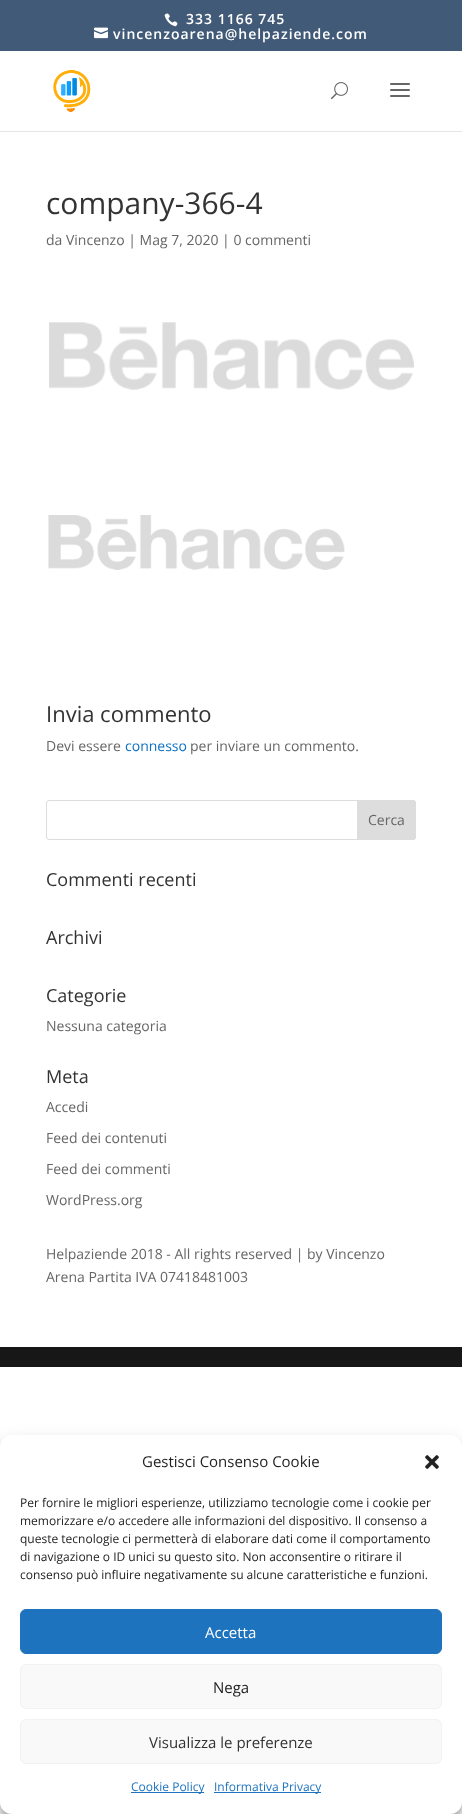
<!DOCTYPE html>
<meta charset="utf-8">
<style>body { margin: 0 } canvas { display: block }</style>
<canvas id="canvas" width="462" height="1814"></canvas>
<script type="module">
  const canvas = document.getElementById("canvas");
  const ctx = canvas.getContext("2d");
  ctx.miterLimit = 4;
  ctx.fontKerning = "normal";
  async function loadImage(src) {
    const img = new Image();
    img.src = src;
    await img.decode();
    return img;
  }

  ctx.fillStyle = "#ffffff";
  ctx.fillRect(0, 0, 462, 1814);
  ctx.fillStyle = "#415a77";
  ctx.fillRect(0, 0, 462, 51);
  ctx.drawImage(await loadImage("img1.png"), 164, 13, 14, 14);
  ctx.letterSpacing = "1px";
  ctx.font = "600 14px Open Sans";
  ctx.fillStyle = "#ffffff";
  ctx.fillText("333 1166 745", 186, 24);
  ctx.drawImage(await loadImage("img2.png"), 94, 27, 14, 12);
  ctx.fillText("vincenzoarena@helpaziende.com", 113, 39);
  ctx.fillStyle = "#e6e6e6";
  ctx.fillRect(0, 131, 462, 1);
  ctx.drawImage(await loadImage("img3.png"), 53, 69, 38, 44);
  ctx.drawImage(await loadImage("img4.png"), 331, 82, 17, 18);
  ctx.drawImage(await loadImage("img5.png"), 390, 83, 20, 14);
  ctx.letterSpacing = "0px";
  ctx.font = "30px Open Sans";
  ctx.fillStyle = "#333333";
  ctx.fillText("company-366-4", 46, 214);
  ctx.font = "14px Open Sans";
  ctx.fillStyle = "#666666";
  ctx.fillText("da Vincenzo | Mag 7, 2020 | 0 commenti", 46, 245);
  ctx.drawImage(await loadImage("img6.png"), 49, 322, 365, 68);
  ctx.drawImage(await loadImage("img7.png"), 48, 515, 297, 55);
  ctx.font = "22px Open Sans";
  ctx.fillStyle = "#333333";
  ctx.fillText("Invia commento", 46, 722);
  ctx.font = "14px Open Sans";
  ctx.fillStyle = "#666666";
  ctx.fillText("Devi essere", 46, 751);
  ctx.fillStyle = "#0c71c3";
  ctx.fillText("connesso", 125, 751);
  ctx.fillStyle = "#666666";
  ctx.fillText("per inviare un commento.", 190, 751);
  ctx.beginPath();
  ctx.roundRect(46.5, 800.5, 369, 39, 2.5);
  ctx.strokeStyle = "#dddddd";
  ctx.stroke();
  ctx.fillStyle = "#dddddd";
  ctx.beginPath();
  ctx.roundRect(357.5, 800.5, 58, 39, [0, 2.5, 2.5, 0]);
  ctx.fill();
  ctx.stroke();
  ctx.fillStyle = "#666666";
  ctx.fillText("Cerca", 368, 825);
  ctx.font = "18px Open Sans";
  ctx.fillStyle = "#333333";
  ctx.fillText("Commenti recenti", 46, 886);
  ctx.fillText("Archivi", 46, 944);
  ctx.fillText("Categorie", 46, 1002);
  ctx.font = "14px Open Sans";
  ctx.fillStyle = "#666666";
  ctx.fillText("Nessuna categoria", 46, 1031);
  ctx.font = "18px Open Sans";
  ctx.fillStyle = "#333333";
  ctx.fillText("Meta", 46, 1083);
  ctx.font = "14px Open Sans";
  ctx.fillStyle = "#666666";
  ctx.fillText("Accedi", 46, 1112);
  ctx.fillText("Feed dei contenuti", 46, 1143);
  ctx.fillText("Feed dei commenti", 46, 1174);
  ctx.fillText("WordPress.org", 46, 1205);
  ctx.fillText("Helpaziende 2018 - All rights reserved | by Vincenzo", 46, 1259);
  ctx.fillText("Arena Partita IVA 07418481003", 46, 1282);
  ctx.fillStyle = "#171717";
  ctx.fillRect(0, 1347, 462, 20);
  ctx.fillStyle = "rgba(0, 0, 0, 0.23)";
  ctx.filter = "blur(3px)";
  ctx.beginPath();
  ctx.roundRect(0, 1441, 462, 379, 12);
  ctx.fill();
  ctx.filter = "none";
  ctx.fillStyle = "rgba(0, 0, 0, 0.19)";
  ctx.filter = "blur(10px)";
  ctx.beginPath();
  ctx.roundRect(0, 1445, 462, 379, 12);
  ctx.fill();
  ctx.filter = "none";
  ctx.fillStyle = "#ffffff";
  ctx.beginPath();
  ctx.roundRect(0, 1435, 462, 379, 12);
  ctx.fill();
  ctx.font = "15px Open Sans";
  ctx.fillStyle = "#222222";
  ctx.fillText("Gestisci Consenso Cookie", 142, 1467);
  ctx.drawImage(await loadImage("img8.png"), 425, 1455, 14, 14);
  ctx.font = "12px Open Sans";
  ctx.fillText("Per fornire le migliori esperienze, utilizziamo tecnologie come i cookie per", 20, 1507);
  ctx.fillText("memorizzare e/o accedere alle informazioni del dispositivo. Il consenso a", 20, 1525);
  ctx.fillText("queste tecnologie ci permetterà di elaborare dati come il comportamento", 20, 1543);
  ctx.fillText("di navigazione o ID unici su questo sito. Non acconsentire o ritirare il", 20, 1561);
  ctx.fillText("consenso può influire negativamente su alcune caratteristiche e funzioni.", 20, 1579);
  ctx.fillStyle = "#1e73be";
  ctx.beginPath();
  ctx.roundRect(20.5, 1609.5, 421, 44, 5.5);
  ctx.fill();
  ctx.strokeStyle = "#1e73be";
  ctx.stroke();
  ctx.font = "15px Open Sans";
  ctx.fillStyle = "#ffffff";
  ctx.fillText("Accetta", 205, 1638);
  ctx.fillStyle = "#f9f9f9";
  ctx.beginPath();
  ctx.roundRect(20.5, 1664.5, 421, 44, 5.5);
  ctx.fill();
  ctx.strokeStyle = "#f2f2f2";
  ctx.stroke();
  ctx.fillStyle = "#222222";
  ctx.fillText("Nega", 213, 1693);
  ctx.fillStyle = "#f9f9f9";
  ctx.beginPath();
  ctx.roundRect(20.5, 1719.5, 421, 44, 5.5);
  ctx.fill();
  ctx.stroke();
  ctx.fillStyle = "#333333";
  ctx.fillText("Visualizza le preferenze", 149, 1748);
  ctx.fillStyle = "#1e73be";
  ctx.fillRect(131, 1792, 73, 1);
  ctx.font = "12px Open Sans";
  ctx.fillText("Cookie Policy", 131, 1791);
  ctx.fillRect(214, 1792, 107, 1);
  ctx.fillText("Informativa Privacy", 214, 1791);
</script>
